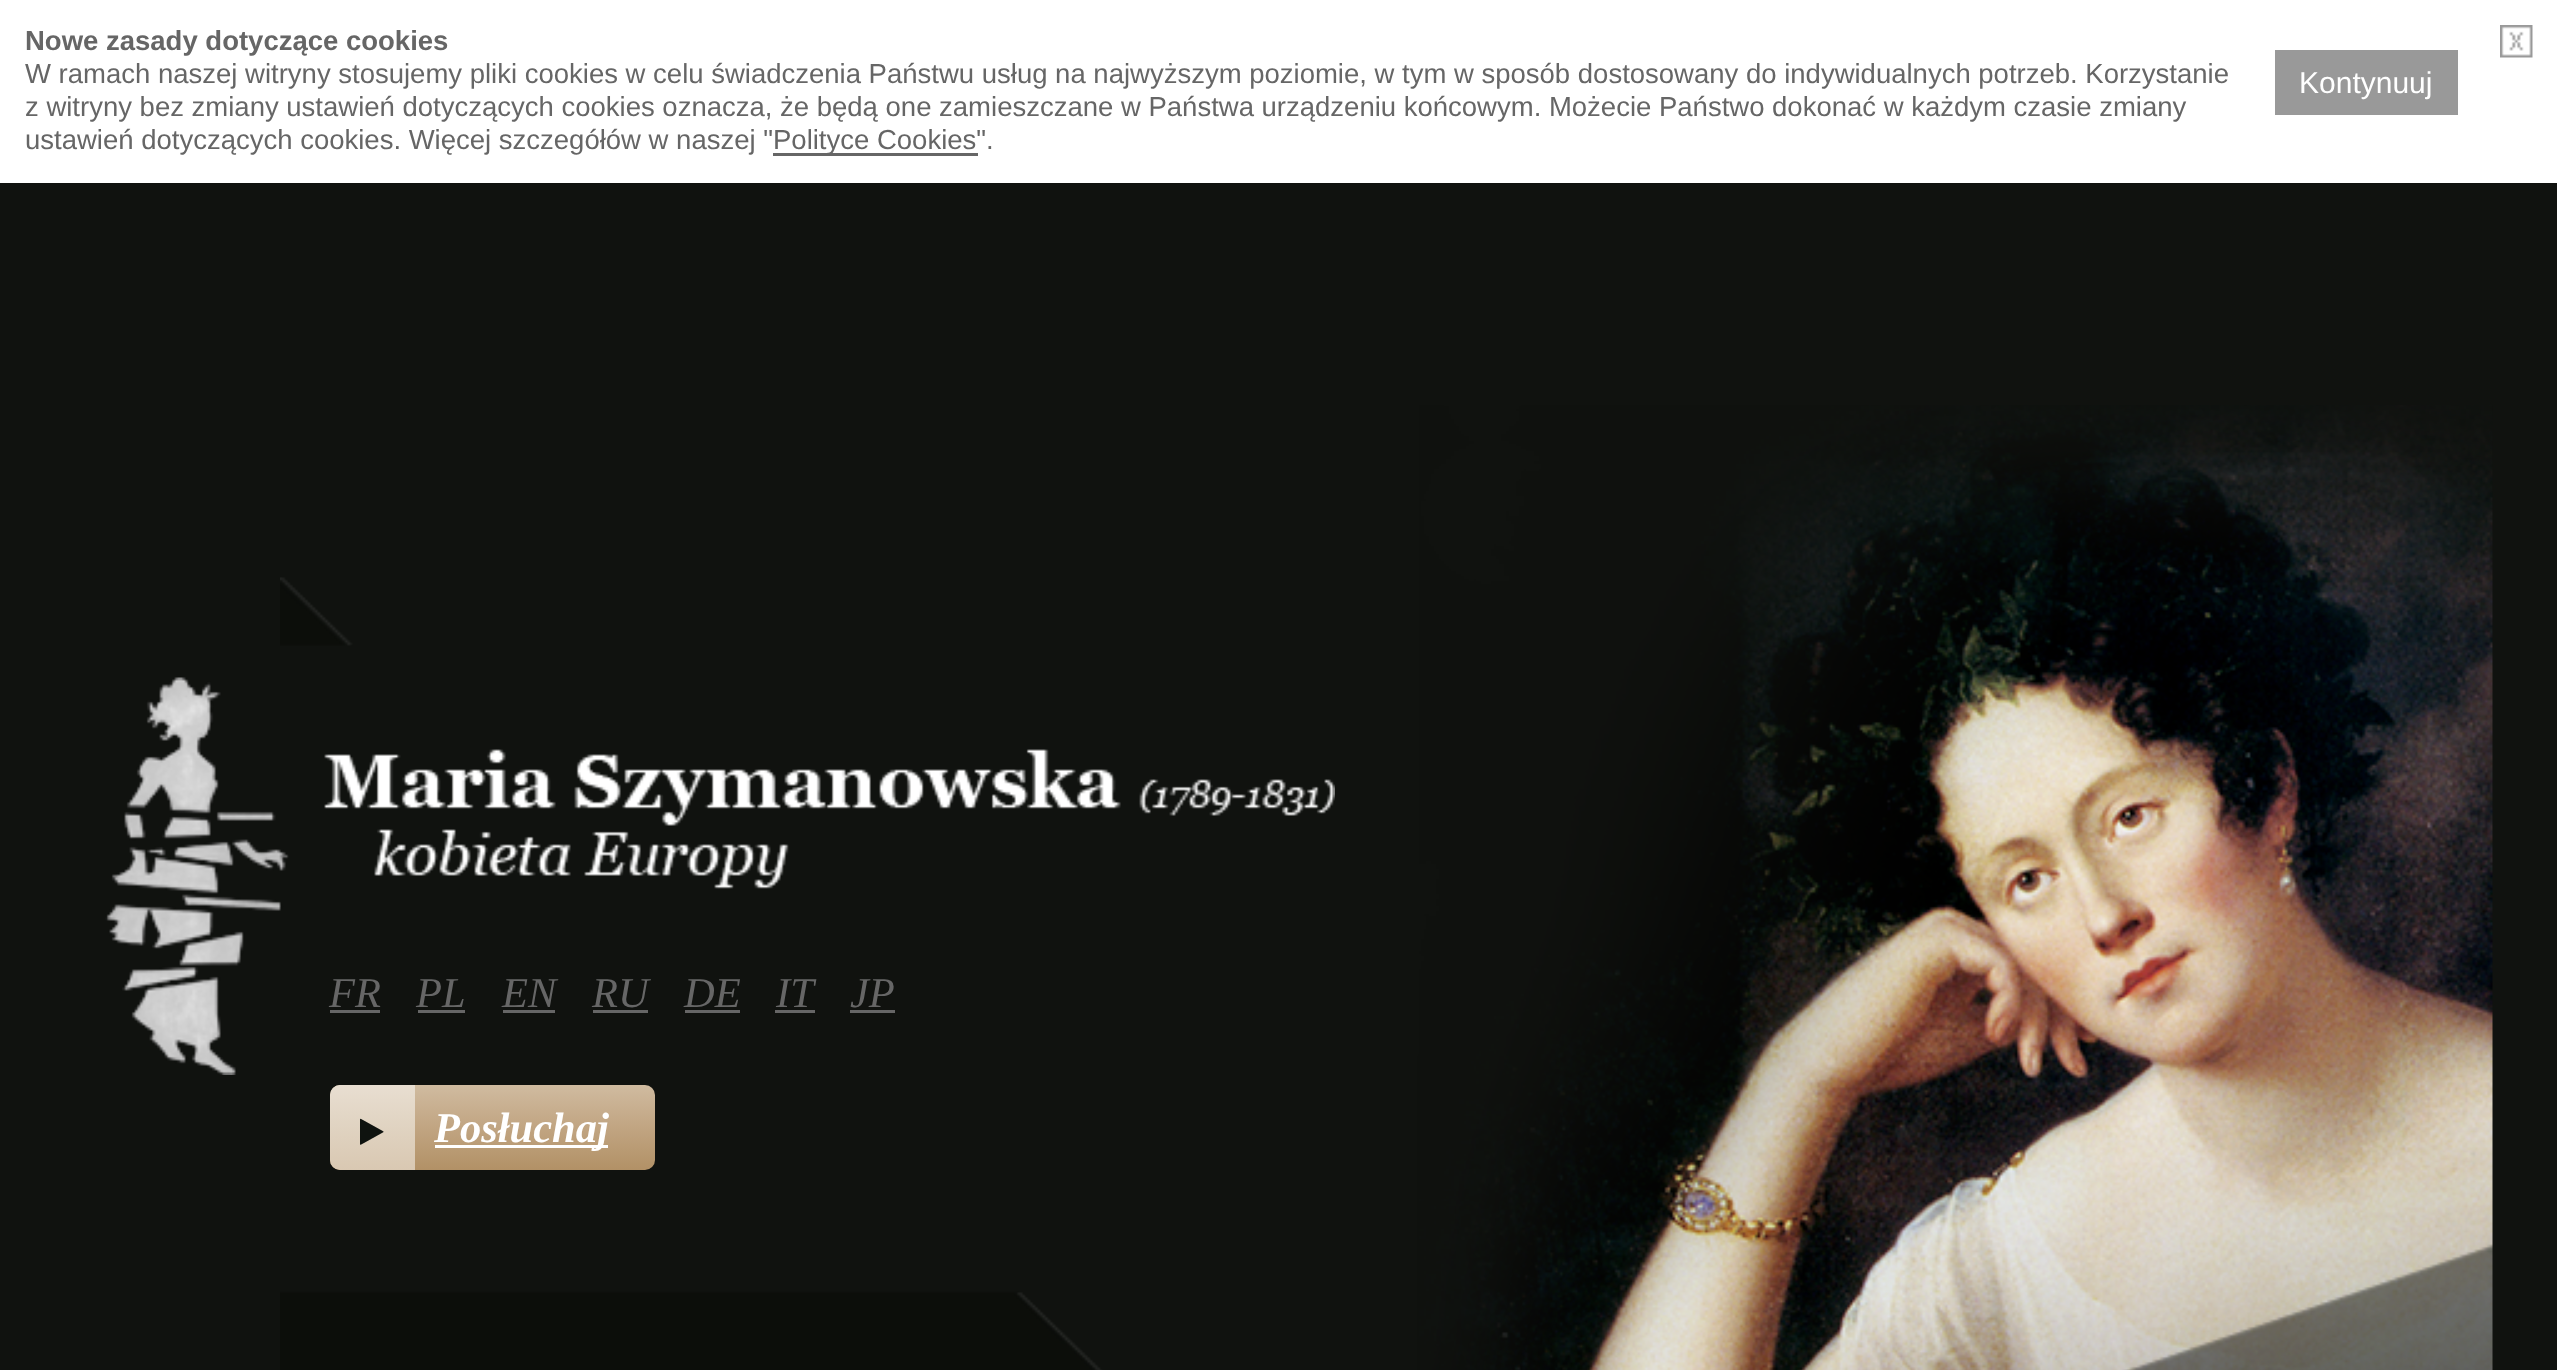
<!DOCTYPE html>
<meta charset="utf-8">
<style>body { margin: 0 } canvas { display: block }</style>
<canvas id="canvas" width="2557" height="1370"></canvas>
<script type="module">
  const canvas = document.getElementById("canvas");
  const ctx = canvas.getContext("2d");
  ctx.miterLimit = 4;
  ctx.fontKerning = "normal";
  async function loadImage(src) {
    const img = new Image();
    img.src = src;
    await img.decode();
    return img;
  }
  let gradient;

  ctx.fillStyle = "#10120f";
  ctx.fillRect(0, 0, 2557, 1370);
  ctx.fillStyle = "#ffffff";
  ctx.fillRect(0, 0, 2557, 183);
  ctx.font = "bold 27.5px Liberation Sans";
  ctx.fillStyle = "#666666";
  ctx.fillText("Nowe zasady dotyczące cookies", 25, 50);
  ctx.font = "27.5px Liberation Sans";
  ctx.fillText("W ramach naszej witryny stosujemy pliki cookies w celu świadczenia Państwu usług na najwyższym poziomie, w tym w sposób dostosowany do indywidualnych potrzeb. Korzystanie", 25, 83);
  ctx.fillStyle = "#999999";
  ctx.fillRect(2275, 50, 183, 65);
  ctx.font = "30px Liberation Sans";
  ctx.fillStyle = "#ffffff";
  ctx.fillText("Kontynuuj", 2299, 93);
  ctx.font = "27.5px Liberation Sans";
  ctx.fillStyle = "#666666";
  ctx.fillText("z witryny bez zmiany ustawień dotyczących cookies oznacza, że będą one zamieszczane w Państwa urządzeniu końcowym. Możecie Państwo dokonać w każdym czasie zmiany", 25, 116);
  ctx.fillText("ustawień dotyczących cookies. Więcej szczegółów w naszej \"", 25, 149);
  ctx.fillRect(773, 153, 205, 3);
  ctx.fillText("Polityce Cookies\".", 773, 149);
  ctx.drawImage(await loadImage("img1.png"), 2500, 25, 33, 33);
  ctx.drawImage(await loadImage("img2.png"), 280, 405, 2213, 965);
  ctx.drawImage(await loadImage("img3.png"), 105, 677, 1230, 398);
  ctx.font = "italic 42.5px Liberation Serif";
  ctx.fillText("FR", 329, 1007);
  ctx.fillRect(330, 1010, 50, 3);
  ctx.fillText("PL", 416, 1007);
  ctx.fillRect(418, 1010, 47, 3);
  ctx.fillText("EN", 502, 1007);
  ctx.fillRect(503, 1010, 52, 3);
  ctx.fillText("RU", 592, 1007);
  ctx.fillRect(593, 1010, 55, 3);
  ctx.fillText("DE", 684, 1007);
  ctx.fillRect(685, 1010, 55, 3);
  ctx.fillText("IT", 776, 1007);
  ctx.fillRect(775, 1010, 40, 3);
  ctx.fillText("JP", 850, 1007);
  ctx.fillRect(850, 1010, 45, 3);
  gradient = ctx.createLinearGradient(493, 1170, 493, 1085);
  gradient.addColorStop(0, "#b29166");
  gradient.addColorStop(0.5, "#c1a582");
  gradient.addColorStop(1, "#d0bba0");
  ctx.fillStyle = gradient;
  ctx.beginPath();
  ctx.roundRect(330, 1085, 325, 85, 10);
  ctx.fill();
  gradient = ctx.createLinearGradient(373, 1170, 373, 1085);
  gradient.addColorStop(0, "#d9c8b2");
  gradient.addColorStop(0.5, "#e0d3c1");
  gradient.addColorStop(1, "#e8ded1");
  ctx.fillStyle = gradient;
  ctx.beginPath();
  ctx.roundRect(330, 1085, 85, 85, [10, 0, 0, 10]);
  ctx.fill();
  ctx.drawImage(await loadImage("img4.png"), 360, 1118, 24, 27);
  ctx.fillStyle = "#ffffff";
  ctx.fillRect(435, 1145, 173, 3);
  ctx.font = "italic bold 42.5px Liberation Serif";
  ctx.fillText("Posłuchaj", 434, 1142);
</script>
